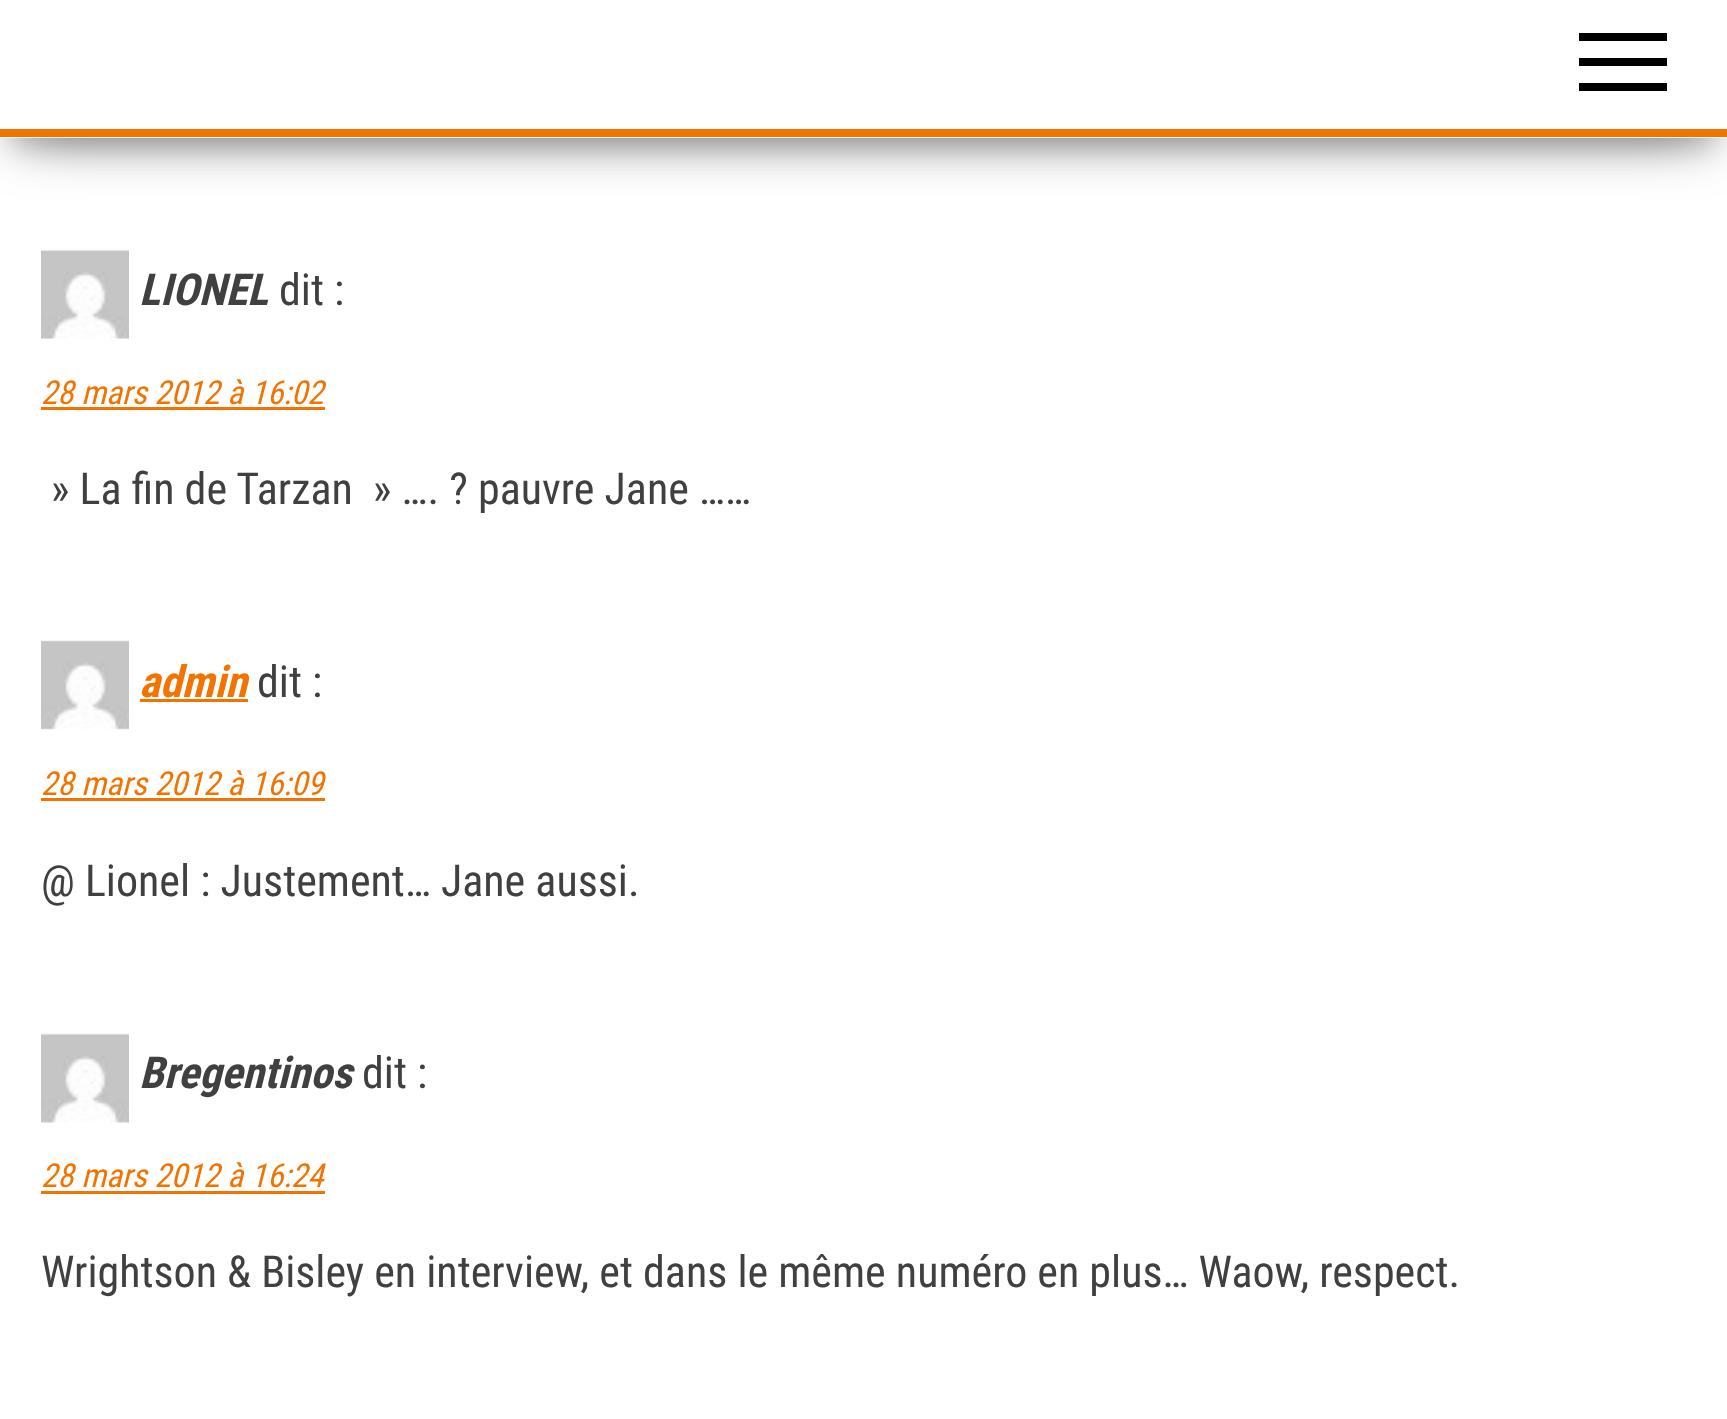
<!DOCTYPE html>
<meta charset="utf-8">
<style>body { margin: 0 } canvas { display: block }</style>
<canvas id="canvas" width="1727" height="1419"></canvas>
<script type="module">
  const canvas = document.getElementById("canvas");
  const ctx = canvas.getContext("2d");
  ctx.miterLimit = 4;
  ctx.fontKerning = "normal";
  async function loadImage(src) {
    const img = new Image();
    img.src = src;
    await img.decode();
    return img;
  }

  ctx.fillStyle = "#ffffff";
  ctx.fillRect(0, 0, 1727, 1419);
  ctx.fillStyle = "rgba(0, 0, 0, 0.2)";
  ctx.filter = "blur(14px)";
  ctx.beginPath();
  ctx.rect(14, 36, 1699, 110);
  ctx.fill();
  ctx.filter = "none";
  ctx.fillStyle = "rgba(0, 0, 0, 0.12)";
  ctx.filter = "blur(27.5px)";
  ctx.beginPath();
  ctx.rect(0, 8, 1727, 138);
  ctx.fill();
  ctx.filter = "none";
  ctx.fillStyle = "rgba(0, 0, 0, 0.42)";
  ctx.filter = "blur(27.5px)";
  ctx.beginPath();
  ctx.rect(33, 61, 1661, 71);
  ctx.fill();
  ctx.filter = "none";
  ctx.fillStyle = "#ffffff";
  ctx.fillRect(0, 0, 1727, 138);
  ctx.fillStyle = "#f27300";
  ctx.fillRect(0, 129, 1727, 8);
  ctx.fillStyle = "#000000";
  ctx.fillRect(1579, 33, 88, 8);
  ctx.fillRect(1579, 58, 88, 8);
  ctx.fillRect(1579, 83, 88, 8);
  ctx.drawImage(await loadImage("img1.png"), 41, 249, 88, 90);
  ctx.font = "italic bold 44px Roboto Condensed";
  ctx.fillStyle = "#404040";
  ctx.fillText("LIONEL", 139, 305);
  ctx.font = "44px Roboto Condensed";
  ctx.fillText("dit :", 279, 305);
  ctx.font = "italic 33px Roboto Condensed";
  ctx.fillStyle = "#f27300";
  ctx.fillText("28 mars 2012 à 16:02", 41, 404);
  ctx.fillRect(41, 407, 284, 3);
  ctx.font = "44px Roboto Condensed";
  ctx.fillStyle = "#404040";
  ctx.fillText("» La fin de Tarzan  » …. ? pauvre Jane ……", 51, 504);
  ctx.drawImage(await loadImage("img2.png"), 41, 640, 88, 90);
  ctx.font = "italic bold 44px Roboto Condensed";
  ctx.fillStyle = "#f27300";
  ctx.fillText("admin", 139, 697);
  ctx.fillRect(140, 699, 108, 3);
  ctx.font = "44px Roboto Condensed";
  ctx.fillStyle = "#404040";
  ctx.fillText("dit :", 257, 697);
  ctx.font = "italic 33px Roboto Condensed";
  ctx.fillStyle = "#f27300";
  ctx.fillText("28 mars 2012 à 16:09", 41, 795);
  ctx.fillRect(41, 798, 284, 3);
  ctx.font = "44px Roboto Condensed";
  ctx.fillStyle = "#404040";
  ctx.fillText("@ Lionel : Justement… Jane aussi.", 41, 896);
  ctx.drawImage(await loadImage("img3.png"), 41, 1033, 88, 90);
  ctx.font = "italic bold 44px Roboto Condensed";
  ctx.fillText("Bregentinos", 139, 1088);
  ctx.font = "44px Roboto Condensed";
  ctx.fillText("dit :", 362, 1088);
  ctx.font = "italic 33px Roboto Condensed";
  ctx.fillStyle = "#f27300";
  ctx.fillText("28 mars 2012 à 16:24", 41, 1187);
  ctx.fillRect(41, 1191, 284, 3);
  ctx.font = "44px Roboto Condensed";
  ctx.fillStyle = "#404040";
  ctx.fillText("Wrightson & Bisley en interview, et dans le même numéro en plus… Waow, respect.", 41, 1287);
</script>
